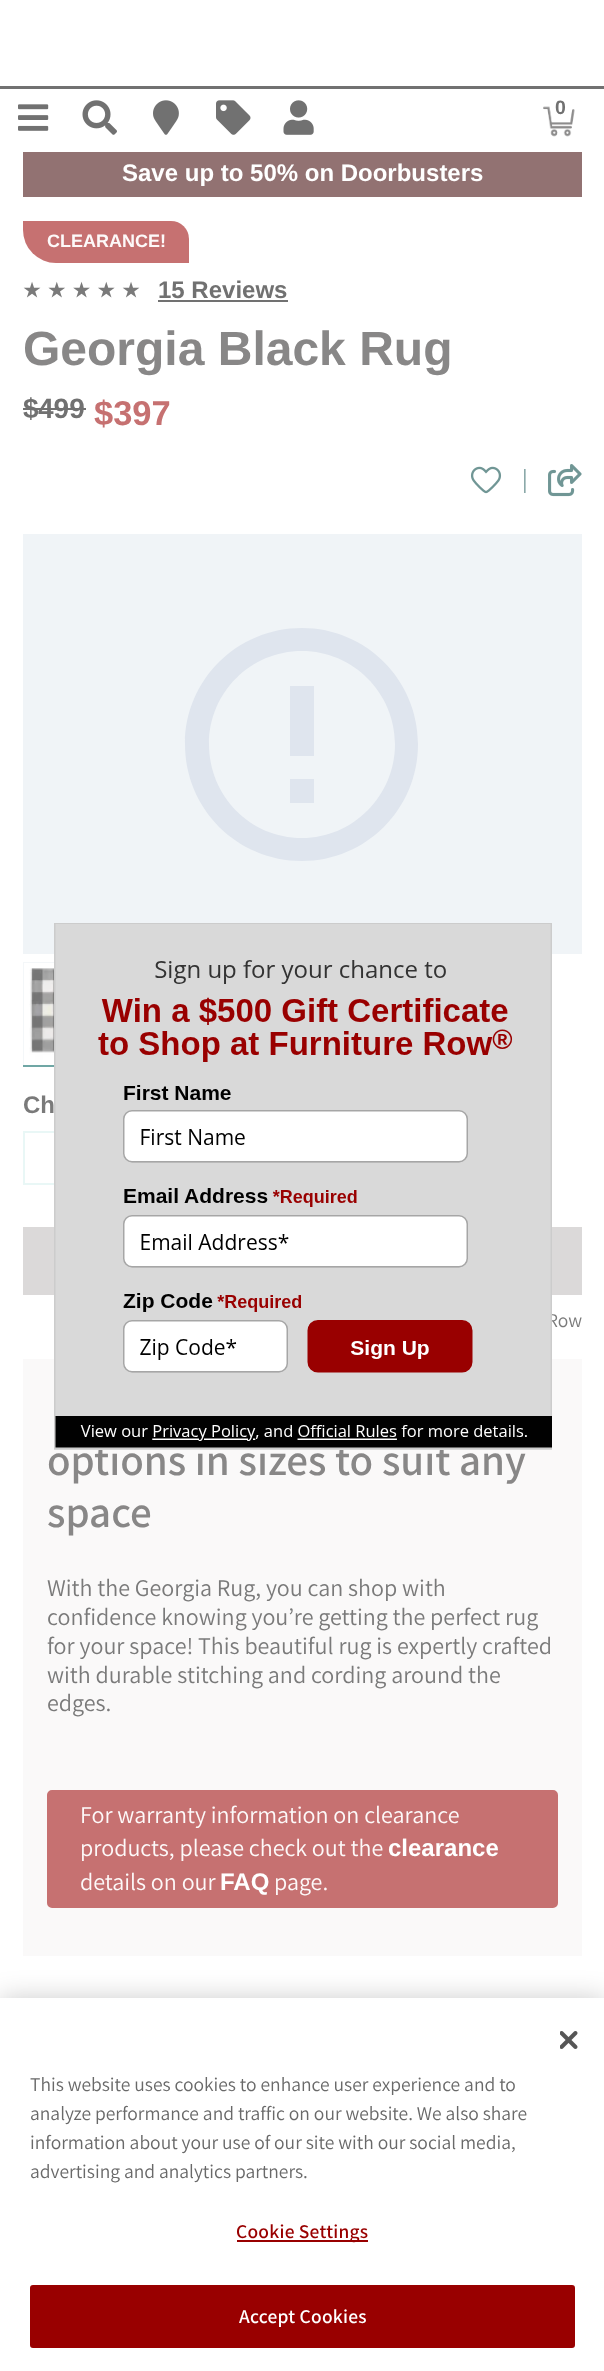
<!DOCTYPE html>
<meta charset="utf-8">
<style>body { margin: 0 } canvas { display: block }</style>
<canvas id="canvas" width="604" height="2371"></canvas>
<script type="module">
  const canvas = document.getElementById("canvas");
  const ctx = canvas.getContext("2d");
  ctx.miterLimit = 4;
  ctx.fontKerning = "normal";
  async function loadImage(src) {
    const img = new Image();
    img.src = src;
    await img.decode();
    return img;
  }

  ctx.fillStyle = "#ffffff";
  ctx.fillRect(0, 0, 604, 2371);
  ctx.fillStyle = "#717171";
  ctx.fillRect(0, 86, 604, 3);
  ctx.drawImage(await loadImage("img1.png"), 18, 104, 31, 27);
  ctx.drawImage(await loadImage("img2.png"), 82, 100, 35, 35);
  ctx.drawImage(await loadImage("img3.png"), 153, 100, 26, 35);
  ctx.drawImage(await loadImage("img4.png"), 216, 100, 35, 35);
  ctx.drawImage(await loadImage("img5.png"), 283, 100, 31, 35);
  ctx.drawImage(await loadImage("img6.png"), 543, 106, 32, 31);
  ctx.font = "bold 19.5px Liberation Sans";
  ctx.fillText("0", 555, 114);
  ctx.fillStyle = "#927272";
  ctx.fillRect(23, 152, 559, 45);
  ctx.font = "bold 24px Liberation Sans";
  ctx.fillStyle = "#ffffff";
  ctx.fillText("Save up to 50% on Doorbusters", 122, 181);
  ctx.fillStyle = "#c67171";
  ctx.beginPath();
  ctx.roundRect(23, 221, 166, 42, [0, 18, 0, 33]);
  ctx.fill();
  ctx.font = "bold 18px Liberation Sans";
  ctx.fillStyle = "#fdf9f9";
  ctx.fillText("CLEARANCE!", 47, 247);
  ctx.letterSpacing = "7.25px";
  ctx.font = "bold 19.5px DejaVu Sans";
  ctx.fillStyle = "#7a7a7a";
  ctx.fillText("★★★★★", 23, 297);
  ctx.letterSpacing = "0px";
  ctx.font = "bold 24px Liberation Sans";
  ctx.fillStyle = "#717171";
  ctx.fillText("15 Reviews", 158, 298);
  ctx.fillRect(158, 300, 130, 2);
  ctx.font = "bold 48px Liberation Sans";
  ctx.fillStyle = "#888787";
  ctx.fillText("Georgia Black Rug", 23, 365);
  ctx.font = "bold 28px Liberation Sans";
  ctx.fillStyle = "#717171";
  ctx.fillText("$", 23, 418);
  ctx.fillRect(23, 408, 16, 2);
  ctx.fillText("499", 38, 418);
  ctx.fillRect(39, 408, 47, 2);
  ctx.font = "bold 34.5px Liberation Sans";
  ctx.fillStyle = "#c67171";
  ctx.fillText("$397", 94, 425);
  ctx.drawImage(await loadImage("img7.png"), 470, 466, 32, 28);
  ctx.font = "24px Assistant";
  ctx.fillStyle = "#709695";
  ctx.fillText("|", 522, 487);
  ctx.drawImage(await loadImage("img8.png"), 548, 464, 34, 33);
  ctx.fillStyle = "#f0f4f7";
  ctx.fillRect(23, 534, 559, 420);
  ctx.fillStyle = "#dfe5ee";
  ctx.beginPath();
  ctx.moveTo(290, 779);
  ctx.lineTo(314, 779);
  ctx.lineTo(314, 803);
  ctx.lineTo(290, 803);
  ctx.closePath();
  ctx.moveTo(290, 686);
  ctx.lineTo(314, 686);
  ctx.lineTo(314, 756);
  ctx.lineTo(290, 756);
  ctx.closePath();
  ctx.moveTo(302, 628);
  ctx.bezierCurveTo(237, 628, 185, 680, 185, 744);
  ctx.bezierCurveTo(185, 809, 237, 861, 302, 861);
  ctx.bezierCurveTo(366, 861, 418, 809, 418, 744);
  ctx.bezierCurveTo(418, 680, 366, 628, 302, 628);
  ctx.closePath();
  ctx.moveTo(302, 838);
  ctx.bezierCurveTo(250, 838, 209, 796, 209, 744);
  ctx.bezierCurveTo(209, 693, 250, 651, 302, 651);
  ctx.bezierCurveTo(353, 651, 395, 693, 395, 744);
  ctx.bezierCurveTo(395, 796, 353, 838, 302, 838);
  ctx.closePath();
  ctx.fill();
  ctx.strokeStyle = "#f4f7f9";
  ctx.lineWidth = 2;
  ctx.strokeRect(24, 963, 133, 103);
  ctx.drawImage(await loadImage("img9.png"), 24, 963, 30, 102);
  ctx.fillStyle = "#70a7a5";
  ctx.fillRect(23, 1065, 31, 2);
  ctx.font = "bold 24px Liberation Sans";
  ctx.fillStyle = "#7a7a7a";
  ctx.fillText("Ch", 23, 1113);
  ctx.strokeStyle = "#e9f7f6";
  ctx.strokeRect(24, 1132, 149, 52);
  ctx.fillStyle = "#dbd9d9";
  ctx.fillRect(23, 1227, 559, 68);
  ctx.font = "19.5px Assistant";
  ctx.fillStyle = "#7a7a7a";
  ctx.fillText("Row", 547, 1327);
  ctx.fillStyle = "#faf9f9";
  ctx.fillRect(23, 1359, 559, 597);
  ctx.font = "600 43.25px Assistant";
  ctx.fillStyle = "#888787";
  ctx.fillText("options in sizes to suit any", 47, 1475);
  ctx.fillText("space", 47, 1527);
  ctx.font = "24px Assistant";
  ctx.fillStyle = "#7a7a7a";
  ctx.fillText("With the Georgia Rug, you can shop with", 47, 1596);
  ctx.fillText("confidence knowing you’re getting the perfect rug", 47, 1625);
  ctx.fillText("for your space! This beautiful rug is expertly crafted", 47, 1654);
  ctx.fillText("with durable stitching and cording around the", 47, 1683);
  ctx.fillText("edges.", 47, 1711);
  ctx.fillStyle = "#c67171";
  ctx.beginPath();
  ctx.roundRect(48.5, 1791.5, 508, 115, 3.5);
  ctx.fill();
  ctx.strokeStyle = "#c67171";
  ctx.lineWidth = 3;
  ctx.stroke();
  ctx.fillStyle = "#fdf9f9";
  ctx.fillText("For warranty information on clearance", 80, 1823);
  ctx.fillText("products, please check out the", 80, 1856);
  ctx.font = "bold 24px Liberation Sans";
  ctx.fillStyle = "#ffffff";
  ctx.fillText("clearance", 388, 1856);
  ctx.font = "24px Assistant";
  ctx.fillStyle = "#fdf9f9";
  ctx.fillText("details on our", 80, 1890);
  ctx.font = "bold 24px Liberation Sans";
  ctx.fillStyle = "#ffffff";
  ctx.fillText("FAQ", 220, 1890);
  ctx.font = "24px Assistant";
  ctx.fillStyle = "#fdf9f9";
  ctx.fillText("page.", 274, 1890);
  ctx.drawImage(await loadImage("img10.png"), 54, 923, 498, 527);
  ctx.fillStyle = "rgba(0, 0, 0, 0.2)";
  ctx.filter = "blur(13.5px)";
  ctx.beginPath();
  ctx.rect(0, 1998, 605, 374);
  ctx.fill();
  ctx.filter = "none";
  ctx.fillStyle = "#ffffff";
  ctx.fillRect(0, 1998, 604, 373);
  ctx.drawImage(await loadImage("img11.png"), 560, 2031, 18, 18);
  ctx.font = "19.5px Assistant";
  ctx.fillStyle = "#696969";
  ctx.fillText("This website uses cookies to enhance user experience and to", 30, 2091);
  ctx.fillText("analyze performance and traffic on our website. We also share", 30, 2120);
  ctx.fillText("information about your use of our site with our social media,", 30, 2149);
  ctx.fillText("advertising and analytics partners.", 30, 2178);
  ctx.fillStyle = "#990000";
  ctx.fillRect(237, 2240, 131, 2);
  ctx.letterSpacing = "0.25px";
  ctx.font = "600 19.5px Assistant";
  ctx.fillText("Cookie Settings", 236, 2238);
  ctx.beginPath();
  ctx.roundRect(31, 2286, 543, 61, 2);
  ctx.fill();
  ctx.strokeStyle = "#990000";
  ctx.lineWidth = 2;
  ctx.stroke();
  ctx.fillStyle = "#ffffff";
  ctx.fillText("Accept Cookies", 239, 2323);
</script>
